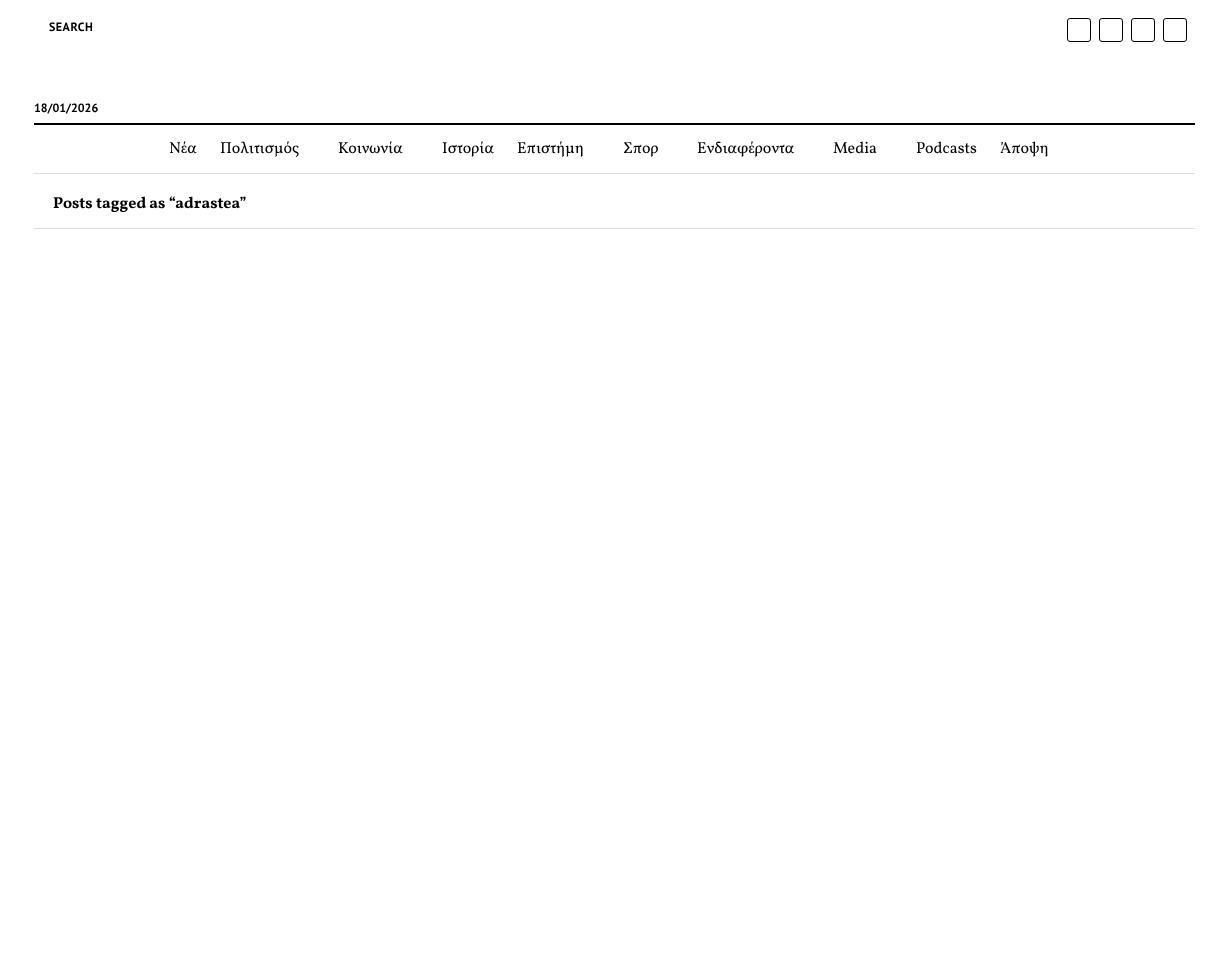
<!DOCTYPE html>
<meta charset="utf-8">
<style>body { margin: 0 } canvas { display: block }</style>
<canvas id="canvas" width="1229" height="956"></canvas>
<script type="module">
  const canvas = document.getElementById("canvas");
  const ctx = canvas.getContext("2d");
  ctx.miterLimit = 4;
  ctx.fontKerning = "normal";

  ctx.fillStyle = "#ffffff";
  ctx.fillRect(0, 0, 1229, 956);
  ctx.letterSpacing = "0.5px";
  ctx.font = "bold 12px PT Sans";
  ctx.fillStyle = "#000000";
  ctx.fillText("SEARCH", 49, 31);
  ctx.beginPath();
  ctx.roundRect(1067.5, 18.5, 23, 23, 2.5);
  ctx.strokeStyle = "#000000";
  ctx.stroke();
  ctx.beginPath();
  ctx.roundRect(1099.5, 18.5, 23, 23, 2.5);
  ctx.stroke();
  ctx.beginPath();
  ctx.roundRect(1131.5, 18.5, 23, 23, 2.5);
  ctx.stroke();
  ctx.beginPath();
  ctx.roundRect(1163.5, 18.5, 23, 23, 2.5);
  ctx.stroke();
  ctx.letterSpacing = "0px";
  ctx.fillText("18/01/2026", 34, 112);
  ctx.fillRect(34, 123, 1161, 2);
  ctx.fillStyle = "#dcdcdc";
  ctx.fillRect(34, 173, 1161, 1);
  ctx.font = "16px Vollkorn";
  ctx.fillStyle = "#000000";
  ctx.fillText("Νέα", 169, 153);
  ctx.fillText("Πολιτισμός", 220, 153);
  ctx.fillText("Κοινωνία", 338, 153);
  ctx.fillText("Ιστορία", 442, 153);
  ctx.fillText("Επιστήμη", 517, 153);
  ctx.fillText("Σπορ", 623, 153);
  ctx.fillText("Ενδιαφέροντα", 697, 153);
  ctx.fillText("Media", 833, 153);
  ctx.fillText("Podcasts", 916, 153);
  ctx.fillText("Άποψη", 1000, 153);
  ctx.fillStyle = "#dcdcdc";
  ctx.fillRect(34, 228, 1161, 1);
  ctx.font = "bold 16px Vollkorn";
  ctx.fillStyle = "#000000";
  ctx.fillText("Posts tagged as “adrastea”", 53, 208);
</script>
